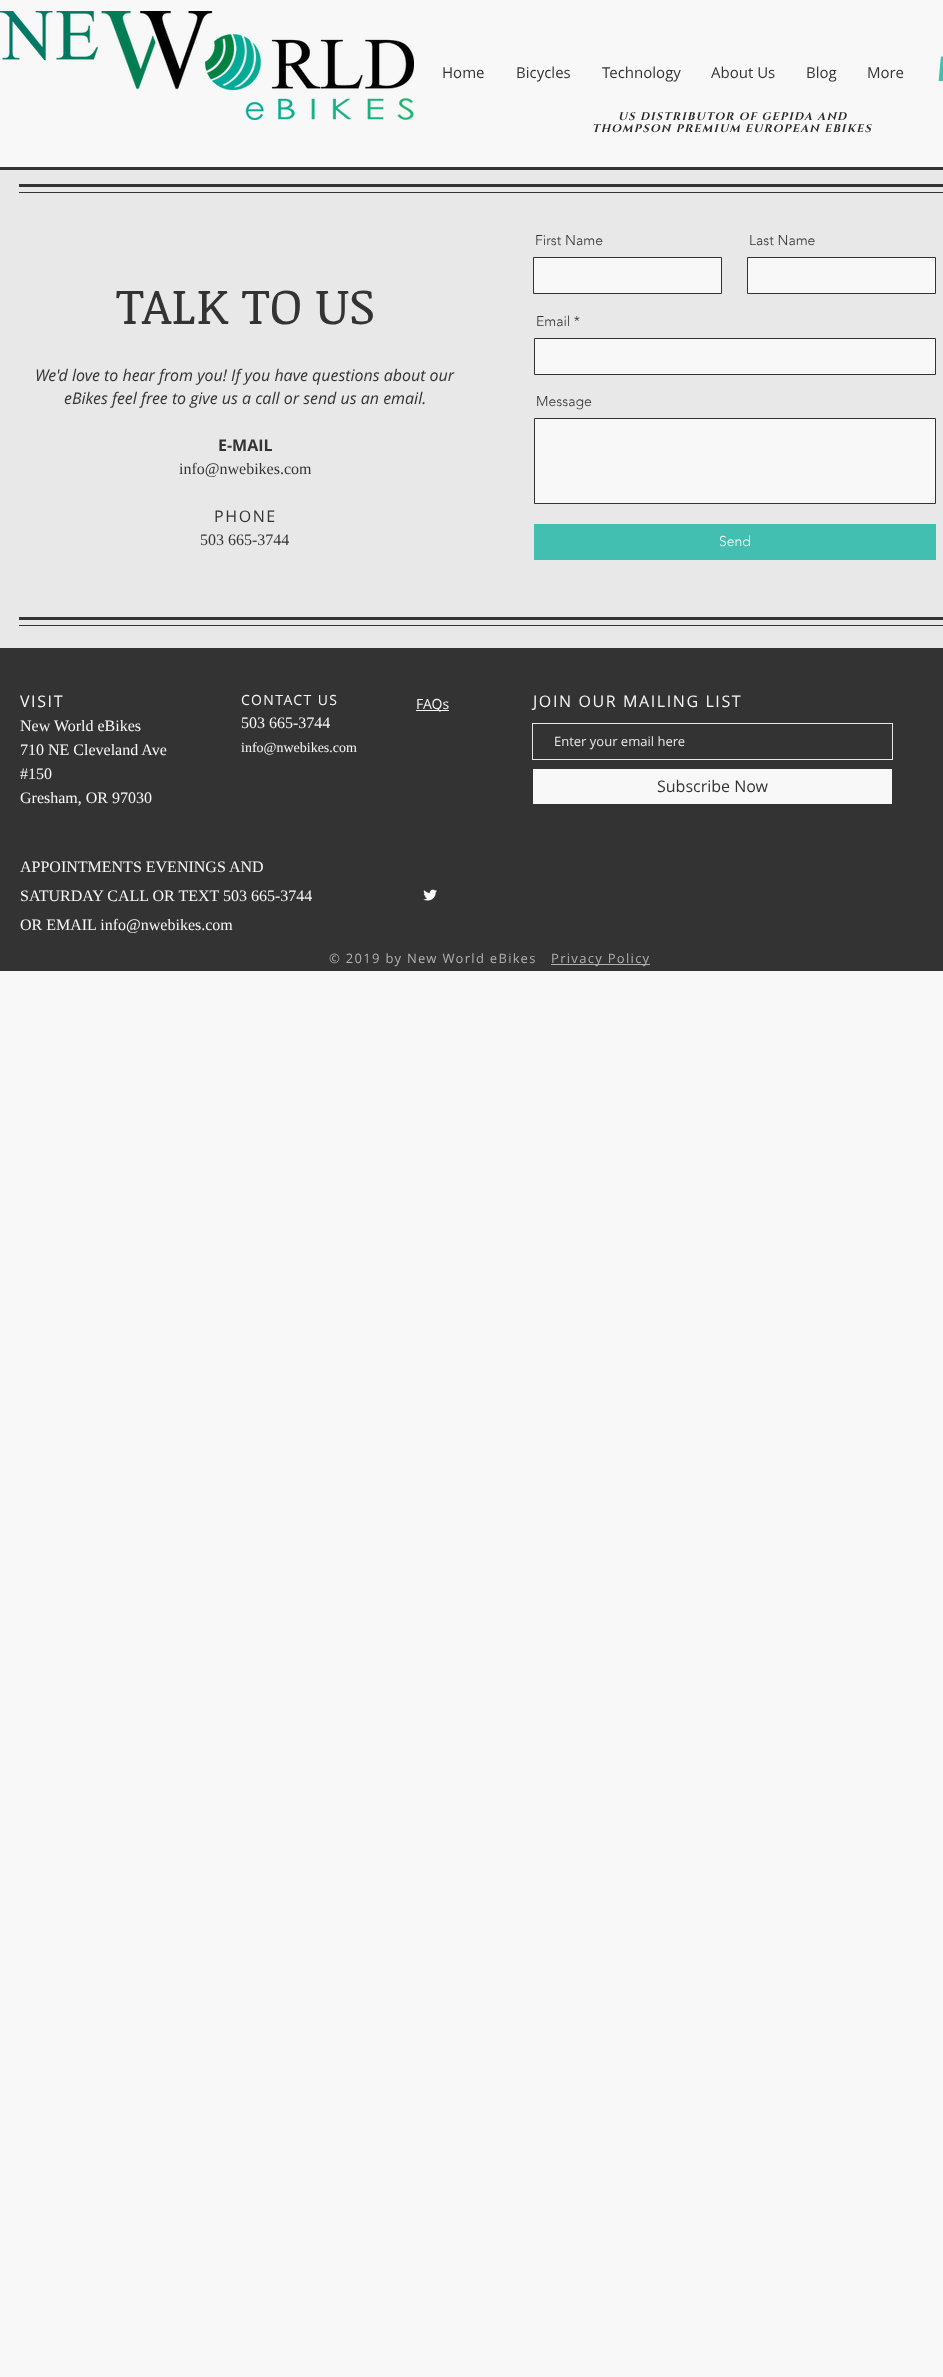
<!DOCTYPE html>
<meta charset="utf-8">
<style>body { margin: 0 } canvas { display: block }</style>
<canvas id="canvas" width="943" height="2377"></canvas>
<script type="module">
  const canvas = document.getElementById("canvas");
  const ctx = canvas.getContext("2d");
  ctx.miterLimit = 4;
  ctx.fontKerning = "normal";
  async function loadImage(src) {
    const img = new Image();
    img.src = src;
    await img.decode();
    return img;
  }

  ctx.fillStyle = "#f8f8f8";
  ctx.fillRect(0, 0, 943, 2377);
  ctx.drawImage(await loadImage("img1.png"), 0, 11, 414, 109);
  ctx.font = "15px Open Sans";
  ctx.fillStyle = "#333333";
  ctx.fillText("Home", 442, 78);
  ctx.fillText("Bicycles", 516, 78);
  ctx.fillText("Technology", 602, 78);
  ctx.fillText("About Us", 711, 78);
  ctx.fillText("Blog", 806, 78);
  ctx.fillText("More", 867, 78);
  ctx.drawImage(await loadImage("img2.png"), 938, 56, 5, 26);
  ctx.letterSpacing = "1.3px";
  ctx.font = "italic bold 11px Cinzel";
  ctx.fillStyle = "#292929";
  ctx.fillText("US DISTRIBUTOR OF GEPIDA AND", 618, 120);
  ctx.fillText("THOMPSON PREMIUM EUROPEAN EBIKES", 592, 132);
  ctx.fillStyle = "#333333";
  ctx.fillRect(0, 167, 943, 3);
  ctx.fillStyle = "#e8e8e8";
  ctx.fillRect(0, 170, 943, 478);
  ctx.fillStyle = "#333333";
  ctx.fillRect(19, 184, 924, 3);
  ctx.fillRect(19, 192, 924, 1);
  ctx.letterSpacing = "0px";
  ctx.font = "50px Noticia Text";
  ctx.fillText("TALK TO US", 116, 324);
  ctx.font = "italic 16px Open Sans";
  ctx.fillText("We'd love to hear from you! If you have questions about our", 35, 381);
  ctx.fillText("eBikes feel free to give us a call or send us an email.", 64, 404);
  ctx.font = "bold 16px Open Sans";
  ctx.fillText("E-MAIL", 218, 451);
  ctx.font = "16px Liberation Serif";
  ctx.fillText("info@nwebikes.com", 179, 474);
  ctx.letterSpacing = "1.6px";
  ctx.font = "16px Open Sans";
  ctx.fillText("PHONE", 214, 522);
  ctx.letterSpacing = "0px";
  ctx.font = "16px Liberation Serif";
  ctx.fillText("503 665-3744", 200, 545);
  ctx.font = "300 14px 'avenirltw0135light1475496'";
  ctx.fillText("First Name", 535, 245);
  ctx.fillStyle = "#f8f8f8";
  ctx.beginPath();
  ctx.rect(533.5, 257.5, 188, 36);
  ctx.fill();
  ctx.strokeStyle = "#333333";
  ctx.stroke();
  ctx.fillStyle = "#333333";
  ctx.fillText("Last Name", 749, 245);
  ctx.fillStyle = "#f8f8f8";
  ctx.beginPath();
  ctx.rect(747.5, 257.5, 188, 36);
  ctx.fill();
  ctx.stroke();
  ctx.fillStyle = "#333333";
  ctx.fillText("Email *", 536, 326);
  ctx.fillStyle = "#f8f8f8";
  ctx.beginPath();
  ctx.rect(534.5, 338.5, 401, 36);
  ctx.fill();
  ctx.stroke();
  ctx.fillStyle = "#333333";
  ctx.fillText("Message", 536, 406);
  ctx.fillStyle = "#f8f8f8";
  ctx.beginPath();
  ctx.rect(534.5, 418.5, 401, 85);
  ctx.fill();
  ctx.stroke();
  ctx.fillStyle = "#42bfb0";
  ctx.fillRect(534, 524, 402, 36);
  ctx.fillStyle = "#f8f8f8";
  ctx.fillText("Send", 719, 546);
  ctx.fillStyle = "#333333";
  ctx.fillRect(19, 617, 924, 3);
  ctx.fillRect(19, 625, 924, 1);
  ctx.fillRect(0, 648, 943, 323);
  ctx.letterSpacing = "1.6px";
  ctx.font = "16px Open Sans";
  ctx.fillStyle = "#f8f8f8";
  ctx.fillText("VISIT", 20, 707);
  ctx.letterSpacing = "0px";
  ctx.font = "16px Liberation Serif";
  ctx.fillText("New World eBikes", 20, 731);
  ctx.fillText("710 NE Cleveland Ave", 20, 755);
  ctx.fillText("#150", 20, 779);
  ctx.fillText("Gresham, OR 97030", 20, 803);
  ctx.letterSpacing = "1.4px";
  ctx.font = "14px Open Sans";
  ctx.fillText("CONTACT US", 241, 705);
  ctx.letterSpacing = "0px";
  ctx.font = "16px Liberation Serif";
  ctx.fillText("503 665-3744", 241, 728);
  ctx.font = "14px Liberation Serif";
  ctx.fillText("info@nwebikes.com", 241, 752);
  ctx.fillRect(416, 710, 33, 1);
  ctx.font = "14px Open Sans";
  ctx.fillText("FAQs", 416, 709);
  ctx.letterSpacing = "1.6px";
  ctx.font = "16px Open Sans";
  ctx.fillText("JOIN OUR MAILING LIST", 533, 707);
  ctx.strokeStyle = "#e8e8e8";
  ctx.strokeRect(532.5, 723.5, 360, 36);
  ctx.letterSpacing = "0px";
  ctx.font = "13px Open Sans";
  ctx.fillStyle = "#e8e8e8";
  ctx.fillText("Enter your email here", 554, 746);
  ctx.fillStyle = "#f8f8f8";
  ctx.fillRect(533, 769, 359, 35);
  ctx.font = "16px Open Sans";
  ctx.fillStyle = "#333333";
  ctx.fillText("Subscribe Now", 657, 792);
  ctx.font = "16px Liberation Serif";
  ctx.fillStyle = "#f8f8f8";
  ctx.fillText("APPOINTMENTS EVENINGS AND", 20, 872);
  ctx.fillText("SATURDAY CALL OR TEXT 503 665-3744", 20, 901);
  ctx.fillText("OR EMAIL info@nwebikes.com", 20, 930);
  ctx.drawImage(await loadImage("img3.png"), 423, 889, 14, 12);
  ctx.letterSpacing = "1.3px";
  ctx.font = "13px Open Sans";
  ctx.fillStyle = "#b2b1b1";
  ctx.fillText("© 2019 by New World eBikes", 329, 963);
  ctx.fillRect(551, 964, 99, 1);
  ctx.fillText("Privacy Policy", 551, 963);
</script>
